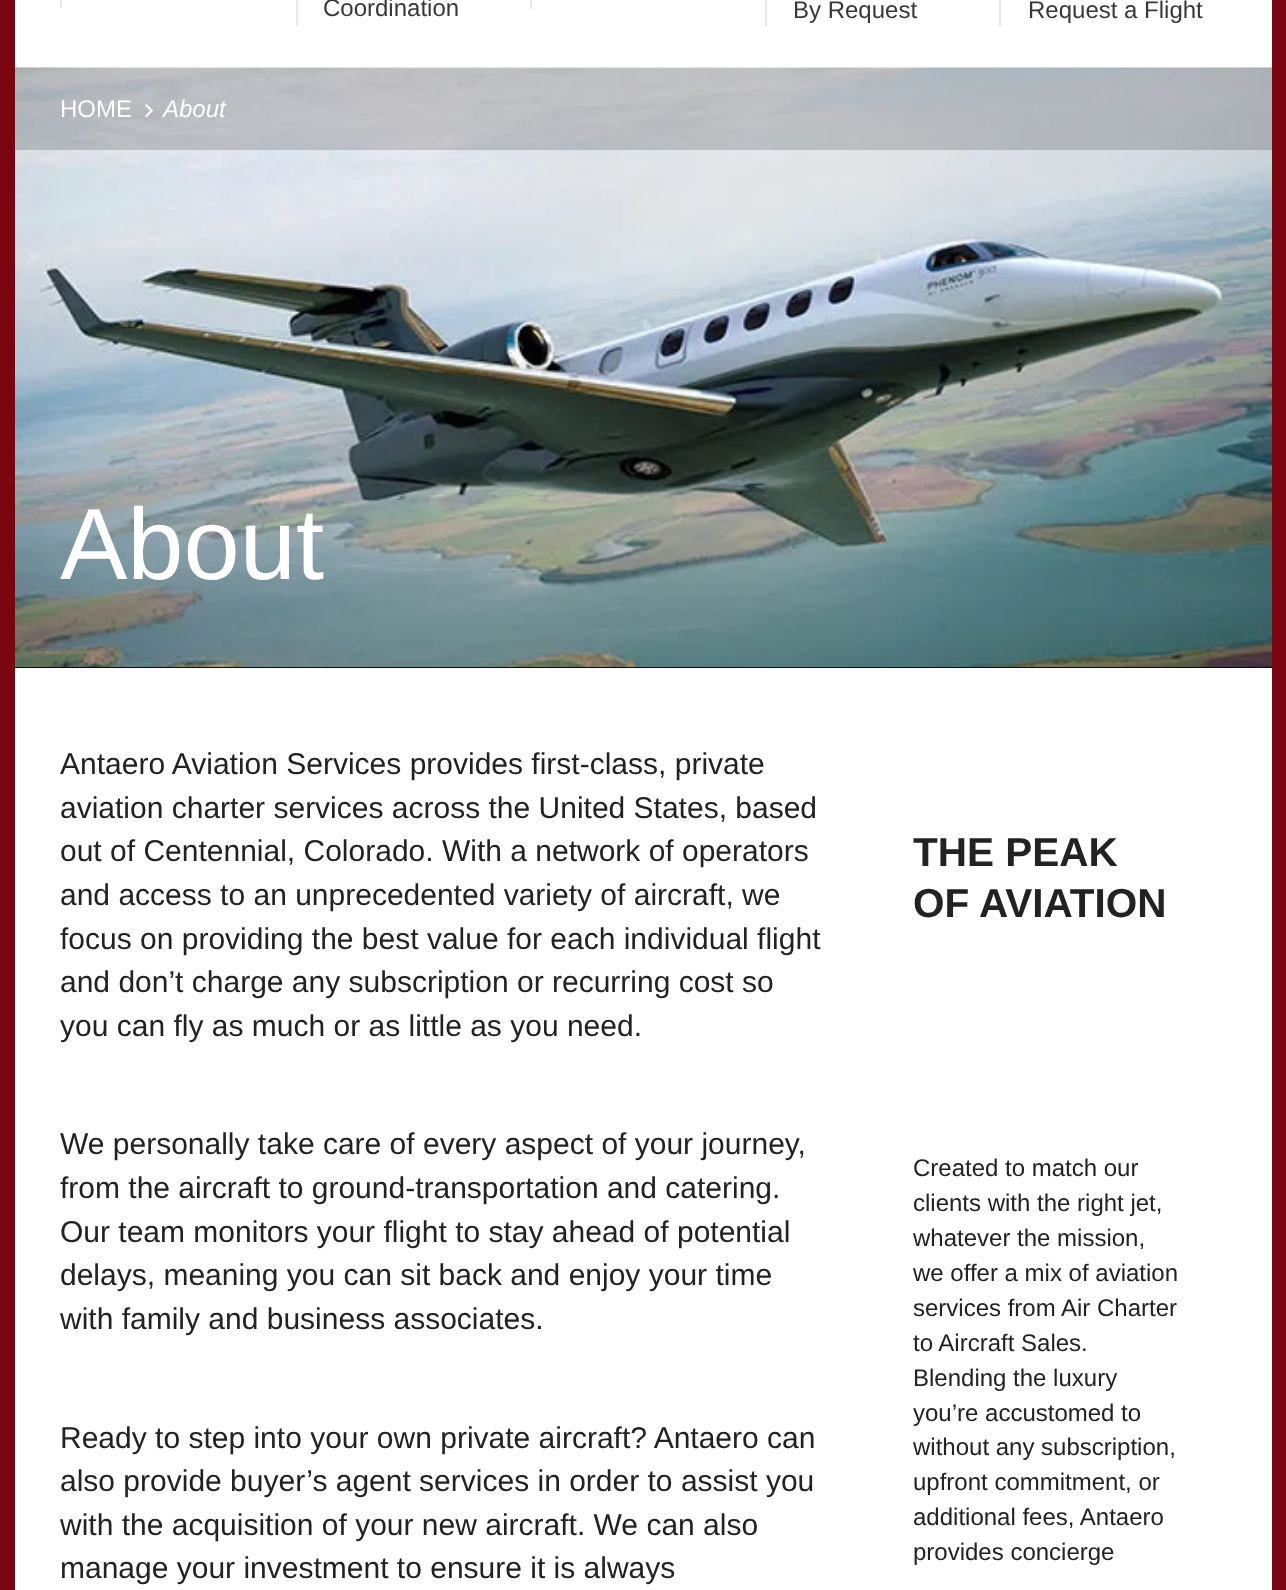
<!DOCTYPE html>
<meta charset="utf-8">
<style>body { margin: 0 } canvas { display: block }</style>
<canvas id="canvas" width="1286" height="1590"></canvas>
<script type="module">
  const canvas = document.getElementById("canvas");
  const ctx = canvas.getContext("2d");
  ctx.miterLimit = 4;
  ctx.fontKerning = "normal";
  async function loadImage(src) {
    const img = new Image();
    img.src = src;
    await img.decode();
    return img;
  }

  ctx.fillStyle = "#7a0511";
  ctx.fillRect(0, 0, 1286, 1590);
  ctx.fillStyle = "rgba(34, 34, 34, 0.3)";
  ctx.filter = "blur(1px)";
  ctx.beginPath();
  ctx.rect(15, -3, 1257, 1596);
  ctx.fill();
  ctx.filter = "none";
  ctx.fillStyle = "#ffffff";
  ctx.fillRect(15, 0, 1257, 67);
  ctx.fillStyle = "#e9e9e9";
  ctx.fillRect(60, 0, 2, 8);
  ctx.fillRect(296, 0, 2, 26);
  ctx.font = "24px Arimo";
  ctx.fillStyle = "#383838";
  ctx.fillText("Coordination", 323, 16);
  ctx.fillStyle = "#e9e9e9";
  ctx.fillRect(530, 0, 2, 9);
  ctx.fillRect(765, 0, 2, 27);
  ctx.fillStyle = "#383838";
  ctx.fillText("By Request", 793, 18);
  ctx.fillStyle = "#e9e9e9";
  ctx.fillRect(999, 0, 2, 27);
  ctx.fillStyle = "#383838";
  ctx.fillText("Request a Flight", 1028, 18);
  ctx.fillStyle = "#0a0a0a";
  ctx.fillRect(15, 667, 1257, 1);
  ctx.drawImage(await loadImage("img1.png"), 15, 67, 1257, 600);
  ctx.fillStyle = "rgba(34, 34, 34, 0.2)";
  ctx.fillRect(15, 68, 1257, 82);
  ctx.fillStyle = "#ffffff";
  ctx.fillText("HOME", 60, 117);
  ctx.drawImage(await loadImage("img2.png"), 145, 104, 8, 14);
  ctx.font = "italic 24px Arimo";
  ctx.fillText("About", 163, 117);
  ctx.font = "101px Arimo";
  ctx.fillText("About", 60, 579);
  ctx.fillRect(15, 668, 1257, 922);
  ctx.font = "30px Arimo";
  ctx.fillStyle = "#222222";
  ctx.fillText("Antaero Aviation Services provides first-class, private", 60, 774);
  ctx.fillText("aviation charter services across the United States, based", 60, 818);
  ctx.fillText("out of Centennial, Colorado. With a network of operators", 60, 861);
  ctx.fillText("and access to an unprecedented variety of aircraft, we", 60, 905);
  ctx.fillText("focus on providing the best value for each individual flight", 60, 949);
  ctx.fillText("and don’t charge any subscription or recurring cost so", 60, 992);
  ctx.fillText("you can fly as much or as little as you need.", 60, 1036);
  ctx.fillText("We personally take care of every aspect of your journey,", 60, 1154);
  ctx.fillText("from the aircraft to ground-transportation and catering.", 60, 1198);
  ctx.fillText("Our team monitors your flight to stay ahead of potential", 60, 1242);
  ctx.fillText("delays, meaning you can sit back and enjoy your time", 60, 1285);
  ctx.fillText("with family and business associates.", 60, 1329);
  ctx.fillText("Ready to step into your own private aircraft? Antaero can", 60, 1448);
  ctx.fillText("also provide buyer’s agent services in order to assist you", 60, 1491);
  ctx.fillText("with the acquisition of your new aircraft. We can also", 60, 1535);
  ctx.fillText("manage your investment to ensure it is always", 60, 1578);
  ctx.font = "bold 40.5px Arimo";
  ctx.fillText("THE PEAK", 913, 866);
  ctx.fillText("OF AVIATION", 913, 917);
  ctx.font = "24px Arimo";
  ctx.fillText("Created to match our", 913, 1176);
  ctx.fillText("clients with the right jet,", 913, 1211);
  ctx.fillText("whatever the mission,", 913, 1246);
  ctx.fillText("we offer a mix of aviation", 913, 1281);
  ctx.fillText("services from Air Charter", 913, 1316);
  ctx.fillText("to Aircraft Sales.", 913, 1351);
  ctx.fillText("Blending the luxury", 913, 1386);
  ctx.fillText("you’re accustomed to", 913, 1421);
  ctx.fillText("without any subscription,", 913, 1455);
  ctx.fillText("upfront commitment, or", 913, 1490);
  ctx.fillText("additional fees, Antaero", 913, 1525);
  ctx.fillText("provides concierge", 913, 1560);
</script>
